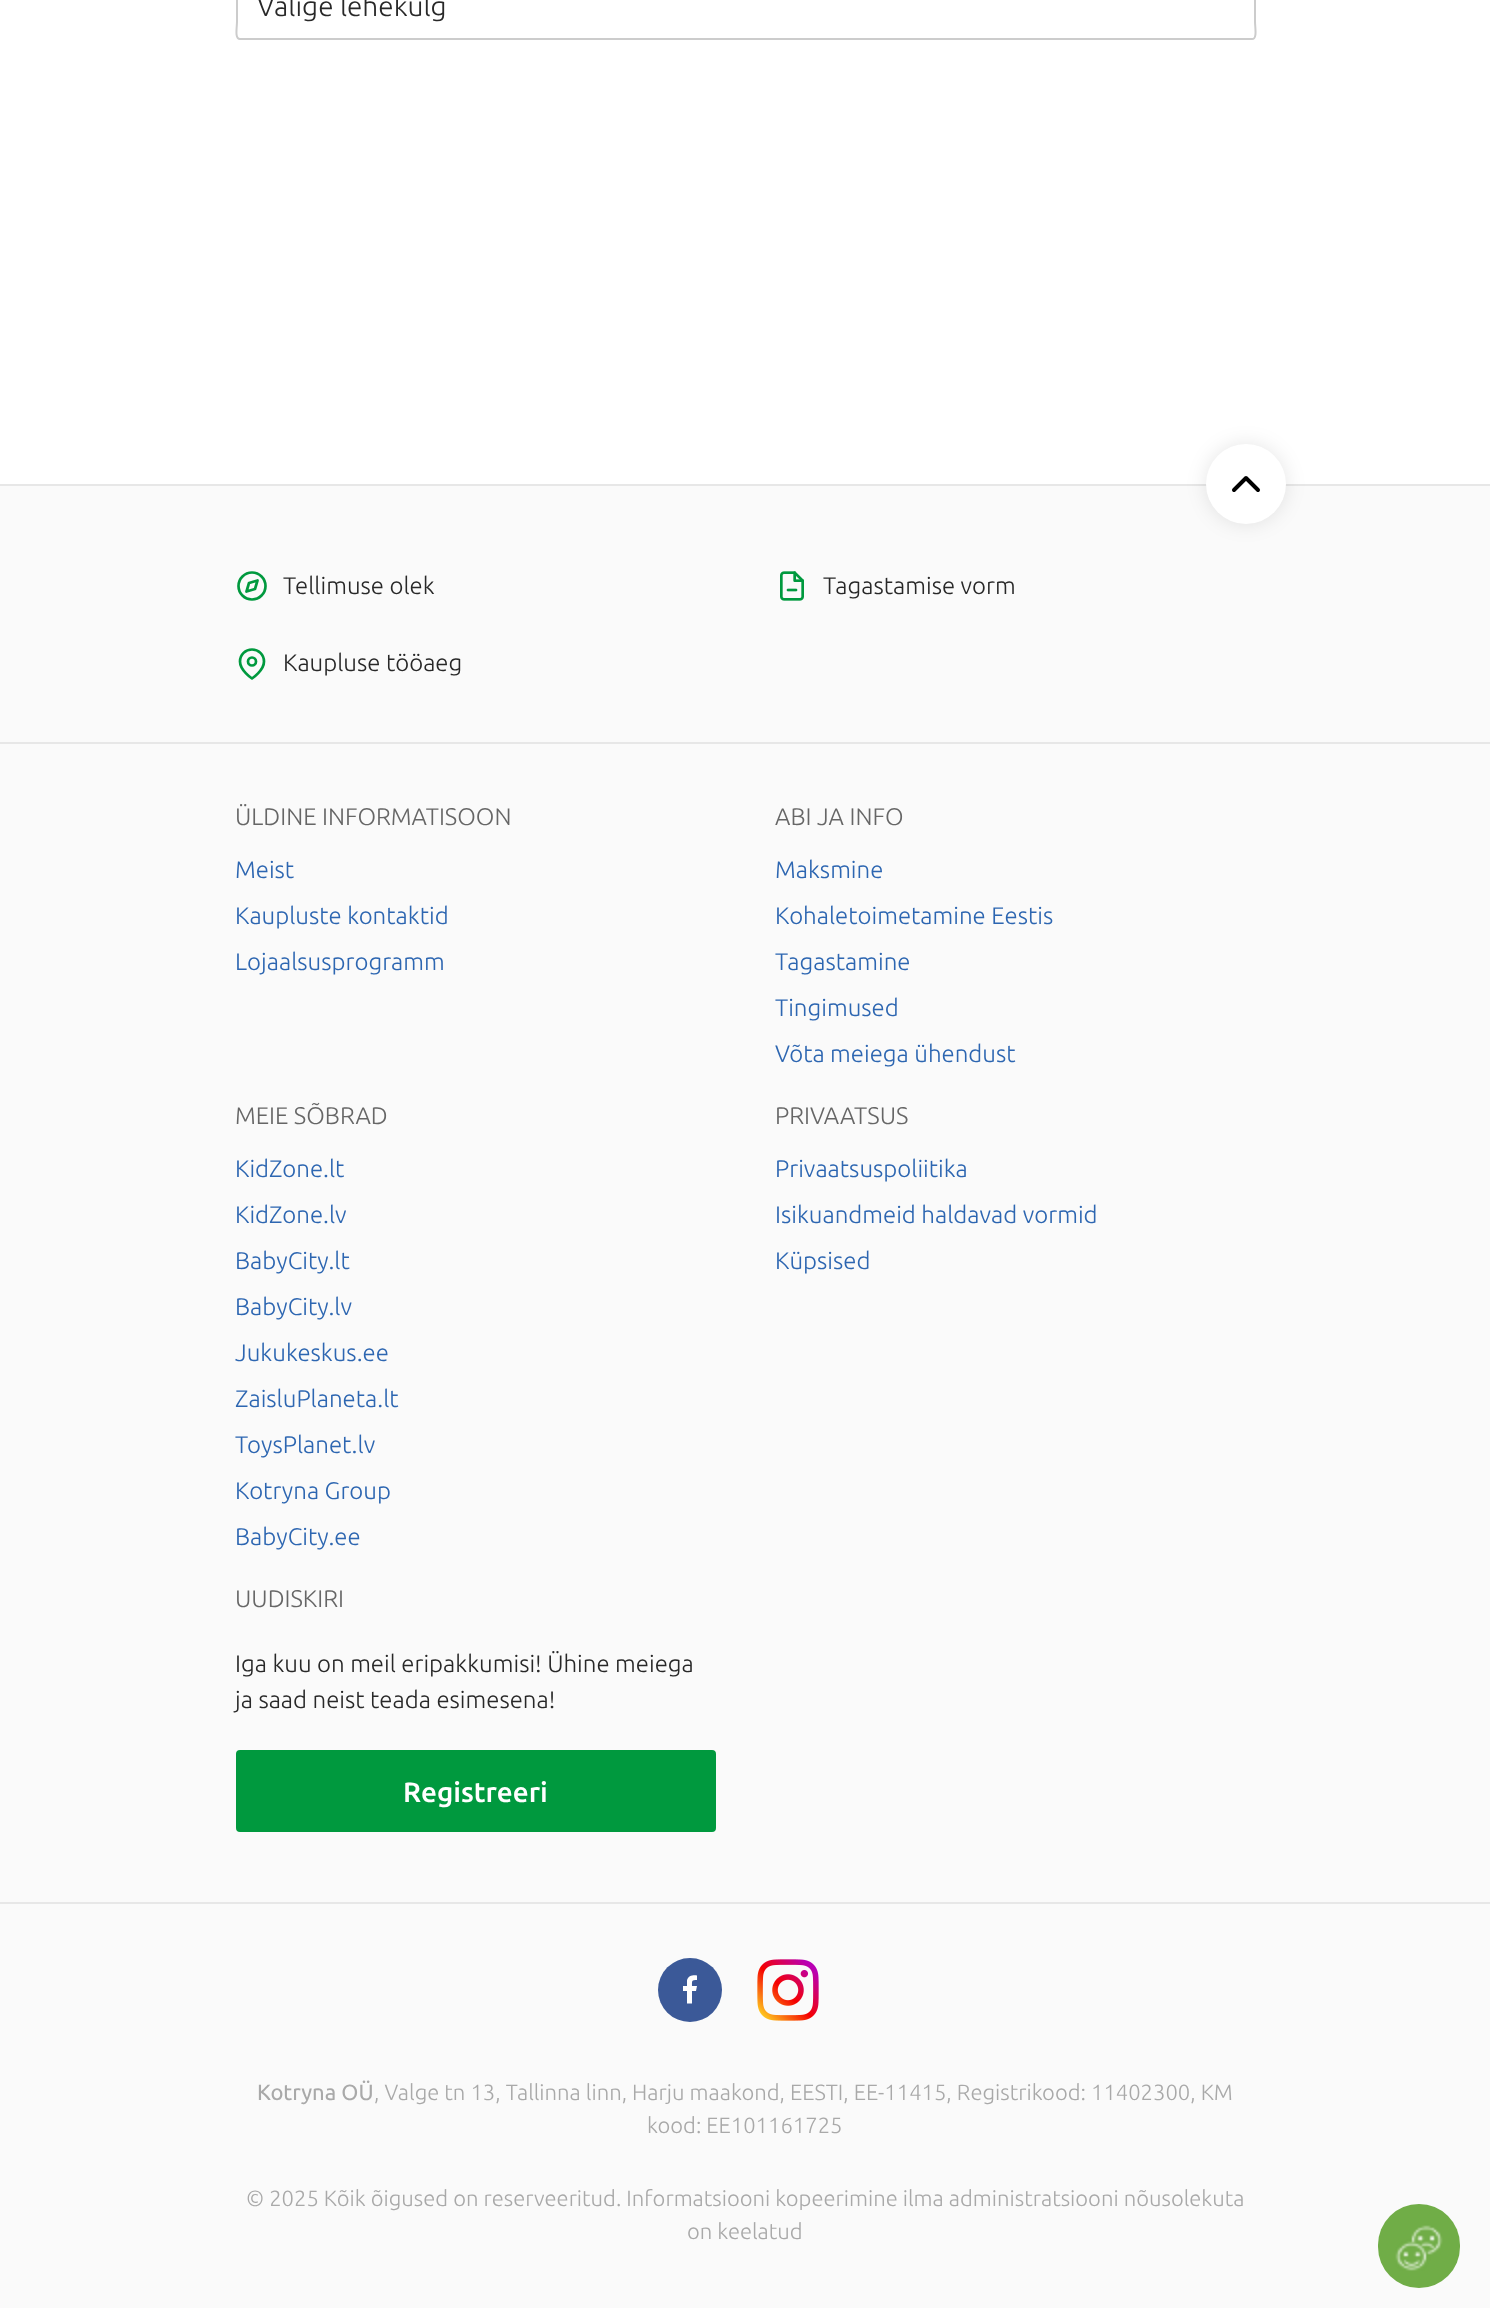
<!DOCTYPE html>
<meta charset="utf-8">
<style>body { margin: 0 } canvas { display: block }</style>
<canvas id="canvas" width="1490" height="2308"></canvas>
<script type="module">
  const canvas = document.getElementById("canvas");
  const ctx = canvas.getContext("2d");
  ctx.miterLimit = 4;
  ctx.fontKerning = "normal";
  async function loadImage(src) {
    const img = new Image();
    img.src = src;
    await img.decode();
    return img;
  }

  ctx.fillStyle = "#ffffff";
  ctx.fillRect(0, 0, 1490, 2308);
  ctx.beginPath();
  ctx.moveTo(1254, -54);
  ctx.lineTo(1255, -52.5);
  ctx.lineTo(1255, 21.5);
  ctx.bezierCurveTo(1255, 27.5, 1257.5, 39, 1252, 39);
  ctx.lineTo(240, 39);
  ctx.bezierCurveTo(234.5, 39, 237, 27.5, 237, 21.5);
  ctx.lineTo(237, -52.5);
  ctx.lineTo(238, -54);
  ctx.strokeStyle = "#cccccc";
  ctx.lineWidth = 2;
  ctx.stroke();
  ctx.font = "300 28px Ubuntu";
  ctx.fillStyle = "#282828";
  ctx.fillText("Valige lehekülg", 257, 16);
  ctx.fillStyle = "#ffffff";
  ctx.beginPath();
  ctx.moveTo(1194, -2);
  ctx.lineTo(1252, -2);
  ctx.bezierCurveTo(1253, -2, 1254, -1, 1254, 0);
  ctx.lineTo(1254, 36);
  ctx.bezierCurveTo(1254, 37, 1253, 38, 1252, 38);
  ctx.lineTo(1194, 38);
  ctx.closePath();
  ctx.fill();
  ctx.fillStyle = "#fafafa";
  ctx.fillRect(0, 486, 1490, 1416);
  ctx.fillStyle = "#e7e7e7";
  ctx.fillRect(0, 484, 1490, 2);
  ctx.fillStyle = "rgba(0, 0, 0, 0.1)";
  ctx.filter = "blur(10px)";
  ctx.beginPath();
  ctx.roundRect(1206, 444, 80, 80, 40);
  ctx.fill();
  ctx.filter = "none";
  ctx.fillStyle = "#ffffff";
  ctx.beginPath();
  ctx.arc(1246, 484, 40, 0, Math.PI * 2);
  ctx.fill();
  ctx.beginPath();
  ctx.moveTo(1258, 490);
  ctx.lineTo(1246, 478);
  ctx.lineTo(1234, 490);
  ctx.strokeStyle = "#000000";
  ctx.lineWidth = 4;
  ctx.lineCap = "round";
  ctx.lineJoin = "round";
  ctx.stroke();
  ctx.font = "300 24px Ubuntu";
  ctx.fillStyle = "#282828";
  ctx.fillText("Tellimuse olek", 283, 594);
  ctx.beginPath();
  ctx.arc(252, 586, 13.5, 0, Math.PI * 2);
  ctx.strokeStyle = "#00993e";
  ctx.lineWidth = 2.7;
  ctx.stroke();
  ctx.beginPath();
  ctx.moveTo(257.5, 580.5);
  ctx.lineTo(255, 589);
  ctx.lineTo(246.5, 591.5);
  ctx.lineTo(249, 583);
  ctx.closePath();
  ctx.stroke();
  ctx.drawImage(await loadImage("img1.png"), 780, 571, 24, 30);
  ctx.fillText("Tagastamise vorm", 823, 594);
  ctx.fillText("Kaupluse tööaeg", 283, 671);
  ctx.beginPath();
  ctx.moveTo(264, 661.5);
  ctx.bezierCurveTo(264, 670.5, 252, 678.5, 252, 678.5);
  ctx.bezierCurveTo(252, 678.5, 240, 670.5, 240, 661.5);
  ctx.bezierCurveTo(240, 654.5, 245.5, 649.5, 252, 649.5);
  ctx.bezierCurveTo(258.5, 649.5, 264, 654.5, 264, 661.5);
  ctx.closePath();
  ctx.stroke();
  ctx.beginPath();
  ctx.arc(252, 661.5, 4, 0, Math.PI * 2);
  ctx.stroke();
  ctx.fillStyle = "#e7e7e7";
  ctx.fillRect(0, 742, 1490, 2);
  ctx.fillStyle = "#666666";
  ctx.fillText("ÜLDINE INFORMATISOON", 235, 825);
  ctx.fillStyle = "#2d66b1";
  ctx.fillText("Meist", 235, 878);
  ctx.fillText("Kaupluste kontaktid", 235, 924);
  ctx.fillText("Lojaalsusprogramm", 235, 970);
  ctx.fillStyle = "#666666";
  ctx.fillText("ABI JA INFO", 775, 825);
  ctx.fillStyle = "#2d66b1";
  ctx.fillText("Maksmine", 775, 878);
  ctx.fillText("Kohaletoimetamine Eestis", 775, 924);
  ctx.fillText("Tagastamine", 775, 970);
  ctx.fillText("Tingimused", 775, 1016);
  ctx.fillText("Võta meiega ühendust", 775, 1062);
  ctx.fillStyle = "#666666";
  ctx.fillText("MEIE SÕBRAD", 235, 1124);
  ctx.fillStyle = "#2d66b1";
  ctx.fillText("KidZone.lt", 235, 1177);
  ctx.fillText("KidZone.lv", 235, 1223);
  ctx.fillText("BabyCity.lt", 235, 1269);
  ctx.fillText("BabyCity.lv", 235, 1315);
  ctx.fillText("Jukukeskus.ee", 235, 1361);
  ctx.fillText("ZaisluPlaneta.lt", 235, 1407);
  ctx.fillText("ToysPlanet.lv", 235, 1453);
  ctx.fillText("Kotryna Group", 235, 1499);
  ctx.fillText("BabyCity.ee", 235, 1545);
  ctx.fillStyle = "#666666";
  ctx.fillText("PRIVAATSUS", 775, 1124);
  ctx.fillStyle = "#2d66b1";
  ctx.fillText("Privaatsuspoliitika", 775, 1177);
  ctx.fillText("Isikuandmeid haldavad vormid", 775, 1223);
  ctx.fillText("Küpsised", 775, 1269);
  ctx.fillStyle = "#666666";
  ctx.fillText("UUDISKIRI", 235, 1607);
  ctx.fillStyle = "#282828";
  ctx.fillText("Iga kuu on meil eripakkumisi! Ühine meiega", 235, 1672);
  ctx.fillText("ja saad neist teada esimesena!", 235, 1708);
  ctx.fillStyle = "#00993e";
  ctx.beginPath();
  ctx.roundRect(237, 1751, 478, 80, 3);
  ctx.fill();
  ctx.lineWidth = 2;
  ctx.lineJoin = "miter";
  ctx.stroke();
  ctx.font = "500 28px Ubuntu";
  ctx.fillStyle = "#ffffff";
  ctx.fillText("Registreeri", 403, 1802);
  ctx.fillStyle = "#fafafa";
  ctx.fillRect(0, 1904, 1490, 404);
  ctx.fillStyle = "#e7e7e7";
  ctx.fillRect(0, 1902, 1490, 2);
  ctx.fillStyle = "#3b5998";
  ctx.beginPath();
  ctx.arc(690, 1990, 32, 0, Math.PI * 2);
  ctx.fill();
  ctx.fillStyle = "#ffffff";
  ctx.beginPath();
  ctx.moveTo(687, 2003.5);
  ctx.lineTo(687, 1991);
  ctx.lineTo(683, 1991);
  ctx.lineTo(683, 1986);
  ctx.lineTo(687, 1986);
  ctx.lineTo(687, 1980.5);
  ctx.bezierCurveTo(688, 1975.5, 693, 1975, 697, 1975.5);
  ctx.lineTo(697, 1980);
  ctx.bezierCurveTo(691.5, 1980, 692, 1980.5, 692, 1986);
  ctx.lineTo(697, 1986);
  ctx.lineTo(696, 1991);
  ctx.lineTo(692, 1991);
  ctx.lineTo(692, 2003.5);
  ctx.closePath();
  ctx.fill("evenodd");
  ctx.drawImage(await loadImage("img2.png"), 757, 1959, 62, 62);
  ctx.font = "22px Ubuntu";
  ctx.fillStyle = "#a9a9a9";
  ctx.fillText("Kotryna OÜ", 257, 2100);
  ctx.font = "300 22px Ubuntu";
  ctx.fillText(", Valge tn 13, Tallinna linn, Harju maakond, EESTI, EE-11415, Registrikood: 11402300, KM", 374, 2100);
  ctx.fillText("kood: EE101161725", 647, 2133);
  ctx.fillText("© 2025 Kõik õigused on reserveeritud. Informatsiooni kopeerimine ilma administratsiooni nõusolekuta", 246, 2206);
  ctx.fillText("on keelatud", 687, 2239);
  ctx.fillStyle = "#70ad47";
  ctx.beginPath();
  ctx.roundRect(1378, 2204, 82, 84, 41);
  ctx.fill();
  ctx.drawImage(await loadImage("img3.png"), 1395, 2225, 48, 46);
</script>
